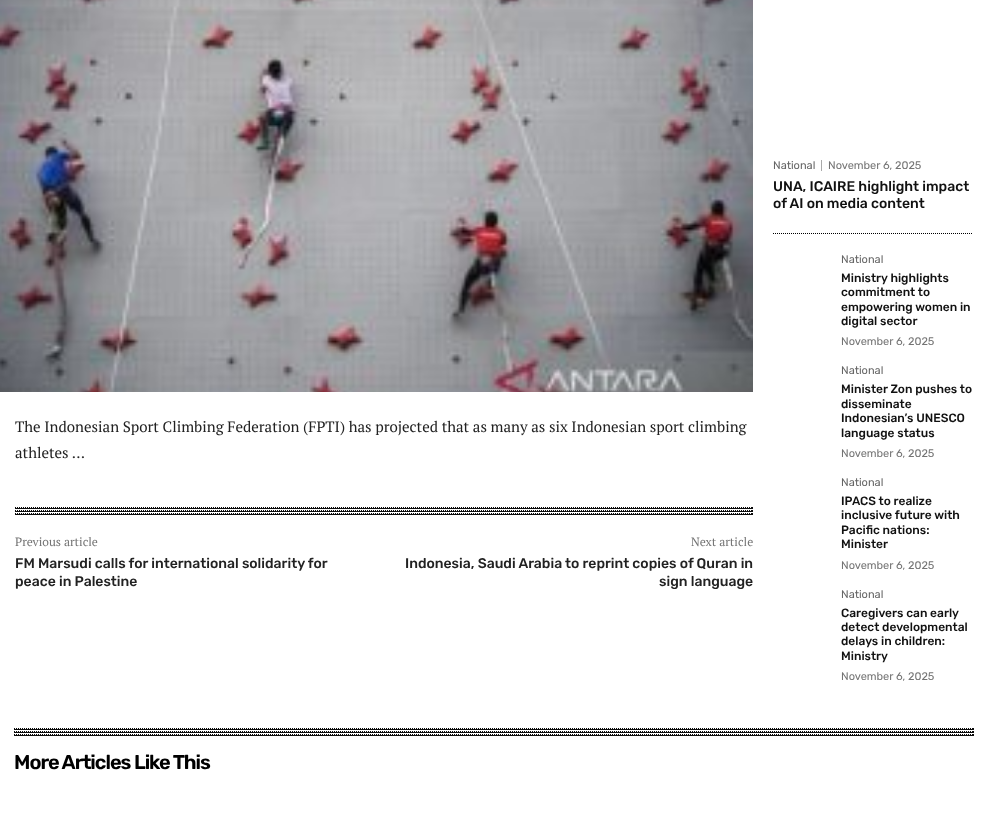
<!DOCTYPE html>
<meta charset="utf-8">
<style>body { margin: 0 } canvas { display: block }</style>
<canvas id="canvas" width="988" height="830"></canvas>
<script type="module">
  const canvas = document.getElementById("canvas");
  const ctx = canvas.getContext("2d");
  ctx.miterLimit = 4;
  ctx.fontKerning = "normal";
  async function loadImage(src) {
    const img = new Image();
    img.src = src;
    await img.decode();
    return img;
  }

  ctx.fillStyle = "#ffffff";
  ctx.fillRect(0, 0, 988, 830);
  ctx.drawImage(await loadImage("img1.png"), 0, 0, 753, 392);
  ctx.font = "15px PT Serif";
  ctx.fillStyle = "#222222";
  ctx.fillText("The Indonesian Sport Climbing Federation (FPTI) has projected that as many as six Indonesian sport climbing", 15, 432);
  ctx.fillText("athletes …", 15, 458);
  ctx.beginPath();
  ctx.moveTo(15, 507.5);
  ctx.lineTo(753, 507.5);
  ctx.strokeStyle = "#0a0a0a";
  ctx.setLineDash([1, 1]);
  ctx.stroke();
  ctx.fillStyle = "#0a0a0a";
  ctx.fillRect(752, 507, 1, 2);
  ctx.fillRect(15, 508, 738, 1);
  ctx.beginPath();
  ctx.moveTo(15, 510.5);
  ctx.lineTo(753, 510.5);
  ctx.stroke();
  ctx.fillRect(752, 510, 1, 2);
  ctx.fillRect(15, 511, 738, 1);
  ctx.beginPath();
  ctx.moveTo(15, 513.5);
  ctx.lineTo(753, 513.5);
  ctx.stroke();
  ctx.fillRect(752, 513, 1, 2);
  ctx.fillRect(15, 514, 738, 1);
  ctx.font = "12px PT Serif";
  ctx.fillStyle = "#747474";
  ctx.fillText("Previous article", 15, 546);
  ctx.font = "500 14px Rubik";
  ctx.fillStyle = "#222222";
  ctx.fillText("FM Marsudi calls for international solidarity for", 15, 568);
  ctx.fillText("peace in Palestine", 15, 586);
  ctx.font = "12px PT Serif";
  ctx.fillStyle = "#747474";
  ctx.fillText("Next article", 691, 546);
  ctx.font = "500 14px Rubik";
  ctx.fillStyle = "#222222";
  ctx.fillText("Indonesia, Saudi Arabia to reprint copies of Quran in", 405, 568);
  ctx.fillText("sign language", 659, 586);
  ctx.beginPath();
  ctx.moveTo(773, 233.5);
  ctx.lineTo(973, 233.5);
  ctx.strokeStyle = "#000000";
  ctx.stroke();
  ctx.fillStyle = "#aaaaaa";
  ctx.fillRect(821, 160, 1, 11);
  ctx.font = "11px Rubik";
  ctx.fillStyle = "#666666";
  ctx.fillText("National", 773, 169);
  ctx.fillStyle = "#747474";
  ctx.fillText("November 6, 2025", 828, 169);
  ctx.font = "500 14px Rubik";
  ctx.fillStyle = "#111111";
  ctx.fillText("UNA, ICAIRE highlight impact", 773, 191);
  ctx.fillText("of AI on media content", 773, 208);
  ctx.font = "11px Rubik";
  ctx.fillStyle = "#666666";
  ctx.fillText("National", 841, 263);
  ctx.font = "500 12px Rubik";
  ctx.fillStyle = "#111111";
  ctx.fillText("Ministry highlights", 841, 282);
  ctx.fillText("commitment to", 841, 296);
  ctx.fillText("empowering women in", 841, 311);
  ctx.fillText("digital sector", 841, 325);
  ctx.font = "11px Rubik";
  ctx.fillStyle = "#747474";
  ctx.fillText("November 6, 2025", 841, 345);
  ctx.fillStyle = "#666666";
  ctx.fillText("National", 841, 374);
  ctx.font = "500 12px Rubik";
  ctx.fillStyle = "#111111";
  ctx.fillText("Minister Zon pushes to", 841, 393);
  ctx.fillText("disseminate", 841, 408);
  ctx.fillText("Indonesian’s UNESCO", 841, 422);
  ctx.fillText("language status", 841, 437);
  ctx.font = "11px Rubik";
  ctx.fillStyle = "#747474";
  ctx.fillText("November 6, 2025", 841, 457);
  ctx.fillStyle = "#666666";
  ctx.fillText("National", 841, 486);
  ctx.font = "500 12px Rubik";
  ctx.fillStyle = "#111111";
  ctx.fillText("IPACS to realize", 841, 505);
  ctx.fillText("inclusive future with", 841, 519);
  ctx.fillText("Pacific nations:", 841, 534);
  ctx.fillText("Minister", 841, 548);
  ctx.font = "11px Rubik";
  ctx.fillStyle = "#747474";
  ctx.fillText("November 6, 2025", 841, 569);
  ctx.fillStyle = "#666666";
  ctx.fillText("National", 841, 598);
  ctx.font = "500 12px Rubik";
  ctx.fillStyle = "#111111";
  ctx.fillText("Caregivers can early", 841, 617);
  ctx.fillText("detect developmental", 841, 631);
  ctx.fillText("delays in children:", 841, 645);
  ctx.fillText("Ministry", 841, 660);
  ctx.font = "11px Rubik";
  ctx.fillStyle = "#747474";
  ctx.fillText("November 6, 2025", 841, 680);
  ctx.beginPath();
  ctx.moveTo(14, 728.5);
  ctx.lineTo(974, 728.5);
  ctx.strokeStyle = "#0a0a0a";
  ctx.stroke();
  ctx.fillStyle = "#0a0a0a";
  ctx.fillRect(973, 728, 1, 2);
  ctx.fillRect(14, 729, 960, 1);
  ctx.beginPath();
  ctx.moveTo(14, 731.5);
  ctx.lineTo(974, 731.5);
  ctx.stroke();
  ctx.fillRect(973, 731, 1, 2);
  ctx.fillRect(14, 732, 960, 1);
  ctx.beginPath();
  ctx.moveTo(14, 734.5);
  ctx.lineTo(974, 734.5);
  ctx.stroke();
  ctx.fillRect(973, 734, 1, 2);
  ctx.fillRect(14, 735, 960, 1);
  ctx.letterSpacing = "-1px";
  ctx.font = "600 20px Rubik";
  ctx.fillStyle = "#000000";
  ctx.fillText("More Articles Like This", 14, 769);
</script>
